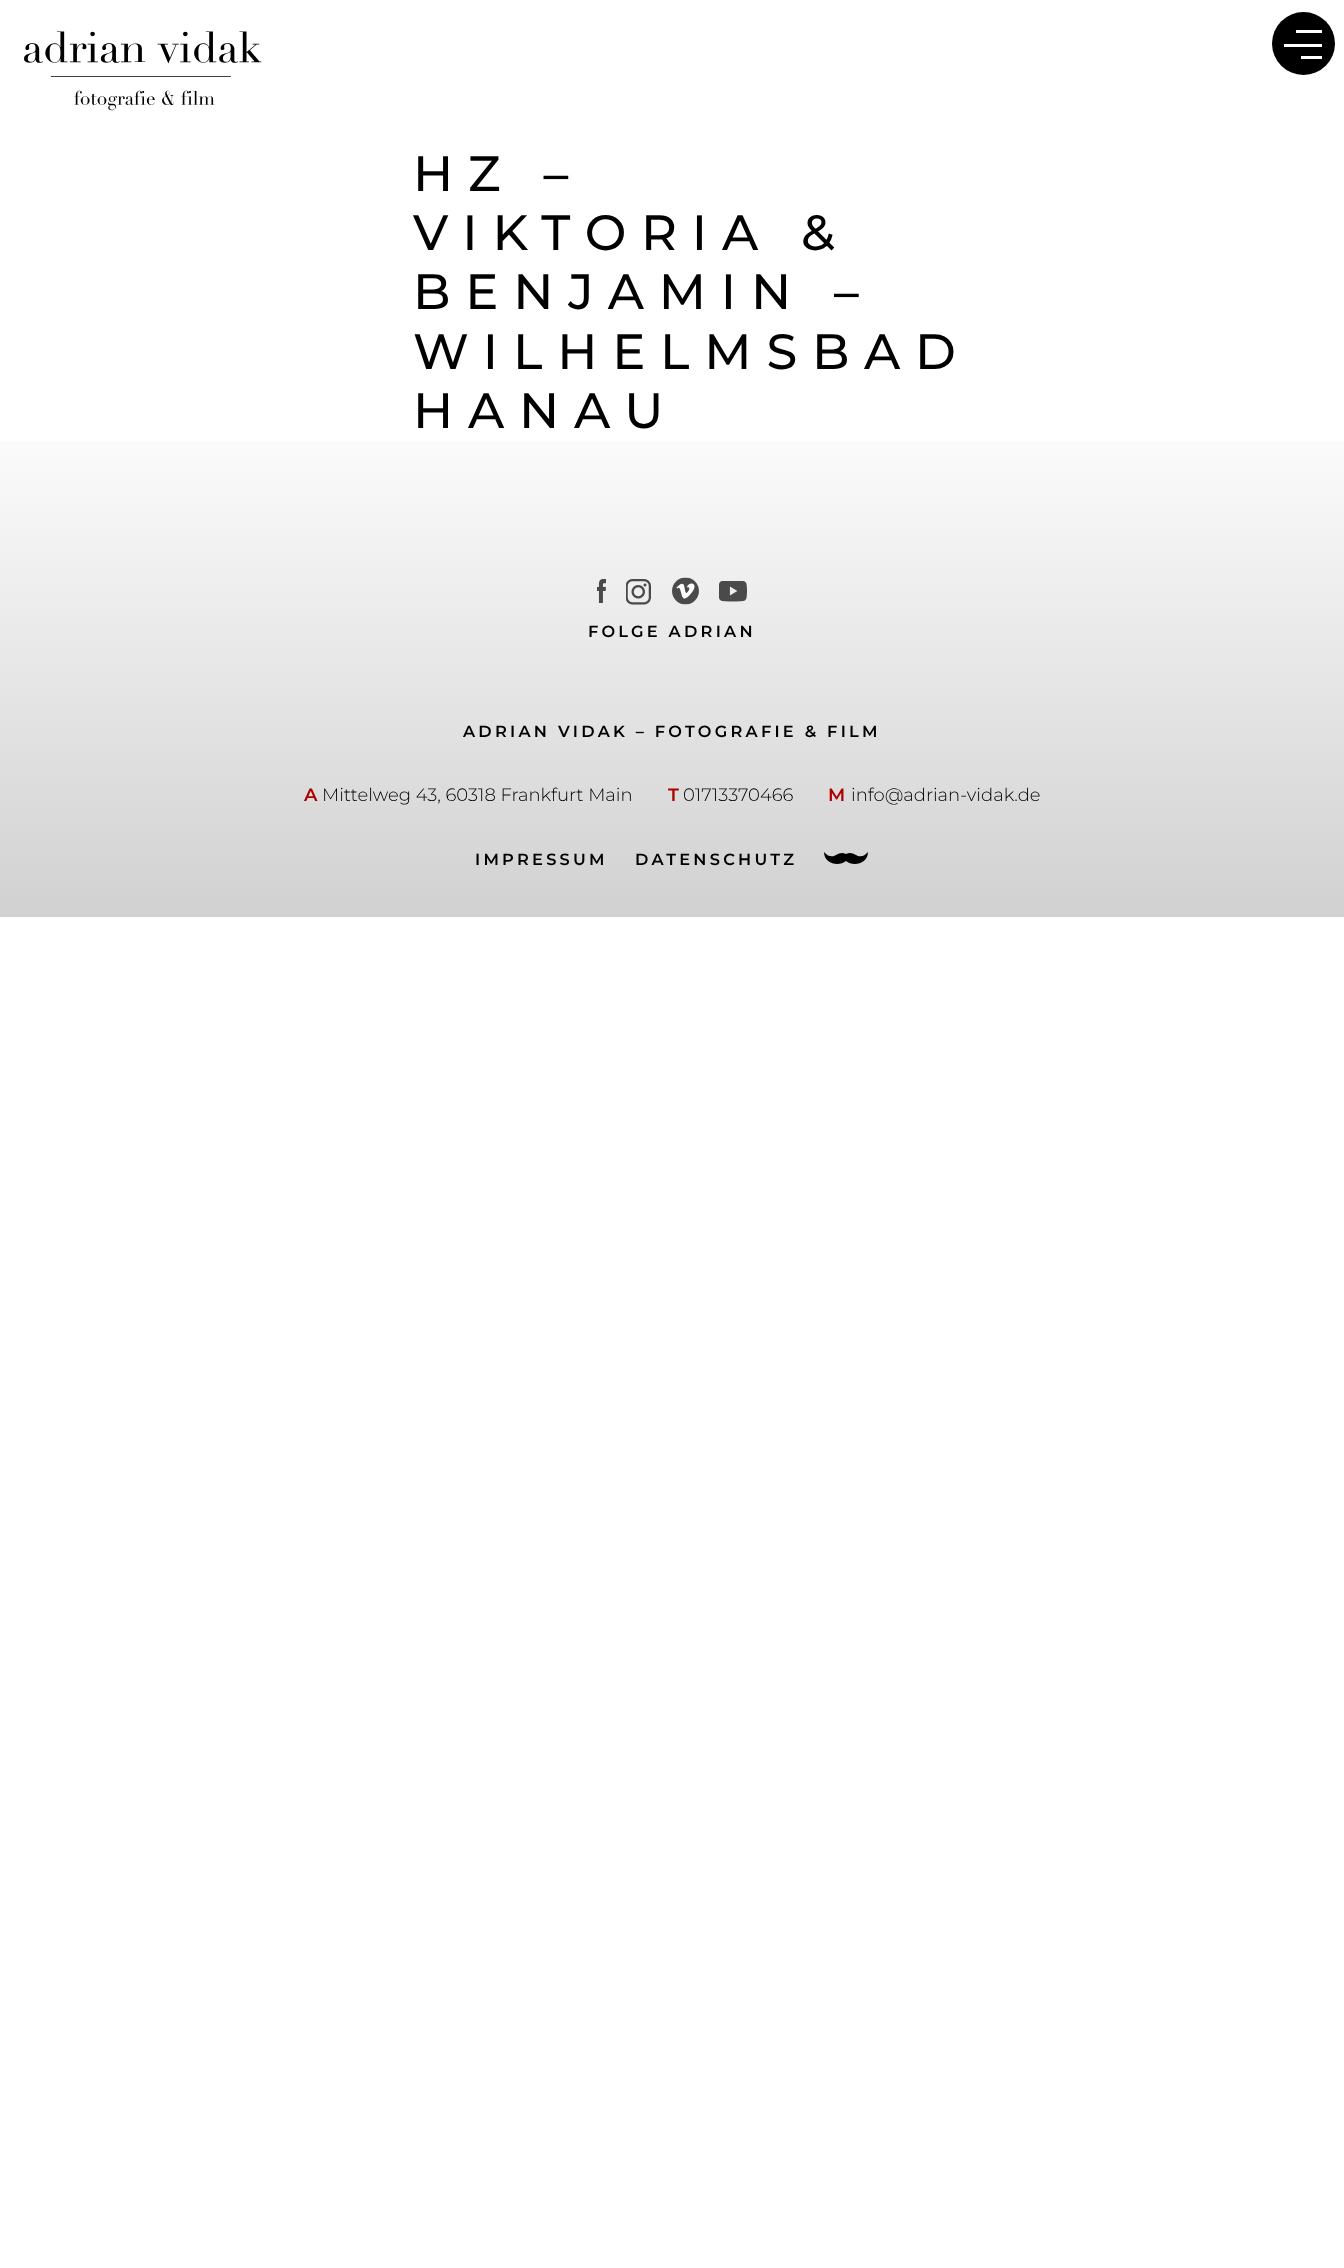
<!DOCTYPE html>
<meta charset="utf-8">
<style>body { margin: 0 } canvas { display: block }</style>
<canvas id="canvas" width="1344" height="2268"></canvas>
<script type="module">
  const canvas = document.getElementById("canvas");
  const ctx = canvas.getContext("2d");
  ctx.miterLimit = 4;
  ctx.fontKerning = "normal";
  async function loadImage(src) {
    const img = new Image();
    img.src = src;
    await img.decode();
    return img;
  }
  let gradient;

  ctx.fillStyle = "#ffffff";
  ctx.fillRect(0, 0, 1344, 2268);
  ctx.drawImage(await loadImage("img1.png"), 24, 31, 238, 80);
  ctx.fillStyle = "#000000";
  ctx.beginPath();
  ctx.arc(1303.5, 43.5, 31.5, 0, Math.PI * 2);
  ctx.fill();
  ctx.fillStyle = "#ffffff";
  ctx.fillRect(1296, 30, 26, 3);
  ctx.fillRect(1284, 44, 38, 3);
  ctx.fillRect(1301, 56, 21, 3);
  ctx.letterSpacing = "14.8px";
  ctx.font = "500 49.5px Montserrat";
  ctx.fillStyle = "#000000";
  ctx.fillText("HZ –", 413, 191);
  ctx.fillText("VIKTORIA &", 413, 250);
  ctx.fillText("BENJAMIN –", 413, 309);
  ctx.fillText("WILHELMSBAD", 413, 369);
  ctx.fillText("HANAU", 413, 428);
  gradient = ctx.createLinearGradient(672, 396, 672, 917);
  gradient.addColorStop(0, "#ffffff");
  gradient.addColorStop(1, "#d1d1d1");
  ctx.fillStyle = gradient;
  ctx.fillRect(0, 441, 1344, 476);
  ctx.drawImage(await loadImage("img2.png"), 597, 579, 9, 24);
  ctx.drawImage(await loadImage("img3.png"), 626, 579, 25, 26);
  ctx.drawImage(await loadImage("img4.png"), 672, 577, 27, 28);
  ctx.drawImage(await loadImage("img5.png"), 719, 581, 28, 21);
  ctx.letterSpacing = "3.25px";
  ctx.font = "600 16.2px Montserrat";
  ctx.fillStyle = "#000000";
  ctx.fillText("FOLGE ADRIAN", 588, 637);
  ctx.fillText("ADRIAN VIDAK – FOTOGRAFIE & FILM", 463, 737);
  ctx.letterSpacing = "0px";
  ctx.font = "600 18px Montserrat";
  ctx.fillStyle = "#af0000";
  ctx.fillText("A", 304, 801);
  ctx.font = "300 18px Montserrat";
  ctx.fillStyle = "#000000";
  ctx.fillText("Mittelweg 43, 60318 Frankfurt Main", 322, 801);
  ctx.font = "600 18px Montserrat";
  ctx.fillStyle = "#af0000";
  ctx.fillText("T", 668, 801);
  ctx.font = "300 18px Montserrat";
  ctx.fillStyle = "#000000";
  ctx.fillText("01713370466", 683, 801);
  ctx.font = "600 18px Montserrat";
  ctx.fillStyle = "#af0000";
  ctx.fillText("M", 828, 801);
  ctx.font = "300 18px Montserrat";
  ctx.fillStyle = "#000000";
  ctx.fillText("info@adrian-vidak.de", 851, 801);
  ctx.letterSpacing = "3.25px";
  ctx.font = "600 16.2px Montserrat";
  ctx.fillText("IMPRESSUM", 475, 865);
  ctx.fillText("DATENSCHUTZ", 635, 865);
  ctx.beginPath();
  ctx.moveTo(846, 854);
  ctx.bezierCurveTo(837, 849, 834, 863, 824, 852);
  ctx.bezierCurveTo(824, 864, 839, 867, 846, 861);
  ctx.bezierCurveTo(853, 867, 868, 864, 868, 852);
  ctx.bezierCurveTo(858, 863, 855, 849, 846, 854);
  ctx.closePath();
  ctx.fill();
</script>
